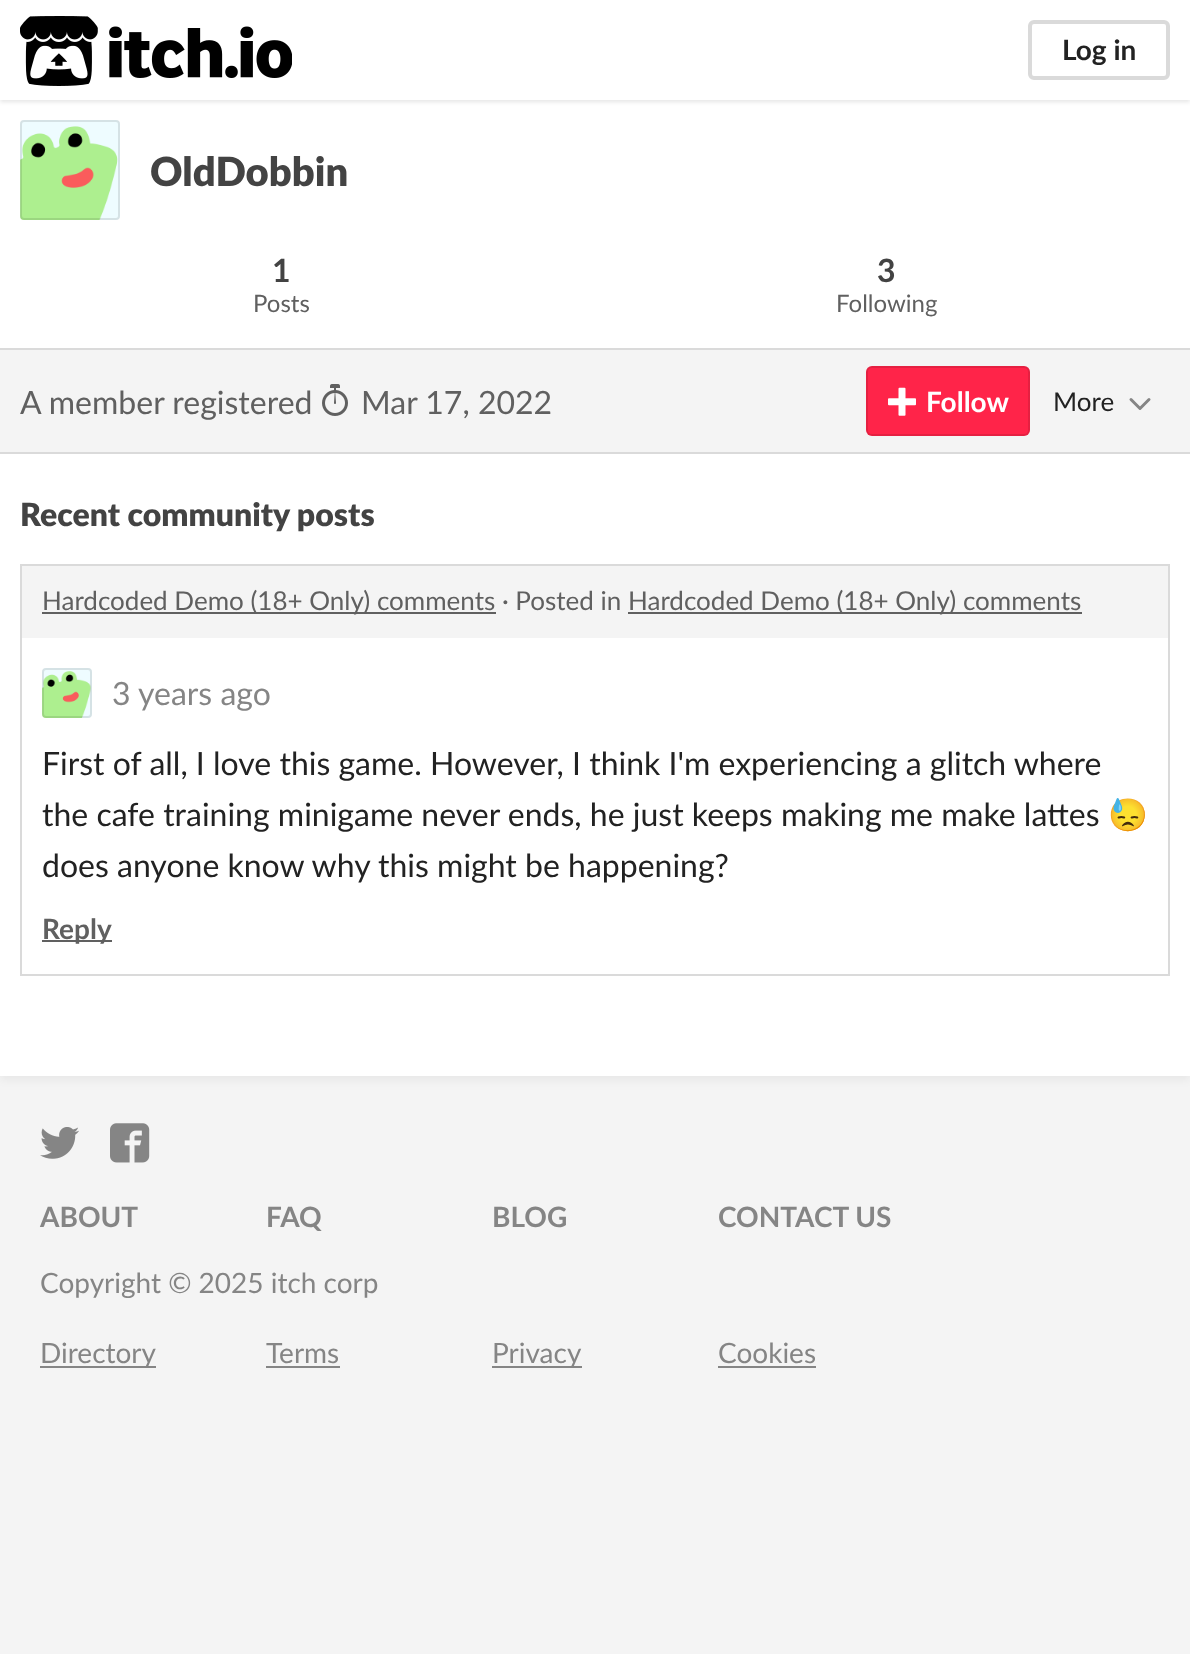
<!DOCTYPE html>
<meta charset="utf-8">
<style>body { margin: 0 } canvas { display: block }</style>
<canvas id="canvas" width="1190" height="1654"></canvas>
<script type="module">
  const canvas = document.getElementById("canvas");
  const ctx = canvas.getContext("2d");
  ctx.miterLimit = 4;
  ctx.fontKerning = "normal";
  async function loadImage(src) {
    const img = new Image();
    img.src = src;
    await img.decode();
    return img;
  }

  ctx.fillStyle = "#f4f4f4";
  ctx.fillRect(0, 0, 1190, 1654);
  ctx.fillStyle = "rgba(0, 0, 0, 0.05)";
  ctx.filter = "blur(4px)";
  ctx.beginPath();
  ctx.rect(0, 104, 1190, 976);
  ctx.fill();
  ctx.filter = "none";
  ctx.fillStyle = "#ffffff";
  ctx.fillRect(0, 100, 1190, 976);
  ctx.fillStyle = "rgba(0, 0, 0, 0.1)";
  ctx.filter = "blur(2px)";
  ctx.beginPath();
  ctx.rect(0, 2, 1190, 100);
  ctx.fill();
  ctx.filter = "none";
  ctx.fillStyle = "#ffffff";
  ctx.fillRect(0, 0, 1190, 100);
  ctx.drawImage(await loadImage("img1.png"), 20, 16, 272, 70);
  ctx.beginPath();
  ctx.roundRect(1030, 22, 138, 56, 4);
  ctx.strokeStyle = "#dadada";
  ctx.lineWidth = 4;
  ctx.stroke();
  ctx.font = "bold 28px Lato";
  ctx.fillStyle = "#222222";
  ctx.fillText("Log in", 1062, 60);
  ctx.fillStyle = "#dadada";
  ctx.fillRect(0, 348, 1190, 2);
  ctx.drawImage(await loadImage("img2.png"), 20, 120, 100, 100);
  ctx.beginPath();
  ctx.roundRect(21, 121, 98, 98, 3);
  ctx.strokeStyle = "rgba(0, 0, 0, 0.1)";
  ctx.lineWidth = 2;
  ctx.stroke();
  ctx.font = "900 40px Lato";
  ctx.fillStyle = "#434343";
  ctx.fillText("OldDobbin", 150, 186);
  ctx.font = "bold 32px Lato";
  ctx.fillText("1", 272, 282);
  ctx.font = "24px Lato";
  ctx.fillStyle = "#606060";
  ctx.fillText("Posts", 253, 312);
  ctx.font = "bold 32px Lato";
  ctx.fillStyle = "#434343";
  ctx.fillText("3", 877, 282);
  ctx.font = "24px Lato";
  ctx.fillStyle = "#606060";
  ctx.fillText("Following", 836, 312);
  ctx.fillStyle = "#f4f4f4";
  ctx.fillRect(0, 350, 1190, 102);
  ctx.fillStyle = "#dadada";
  ctx.fillRect(0, 452, 1190, 2);
  ctx.font = "32px Lato";
  ctx.fillStyle = "#606060";
  ctx.fillText("A member registered", 20, 414);
  ctx.drawImage(await loadImage("img3.png"), 322, 384, 26, 32);
  ctx.fillText("Mar 17, 2022", 361, 414);
  ctx.fillStyle = "#ff2449";
  ctx.beginPath();
  ctx.roundRect(866, 366, 164, 70, 6);
  ctx.fill();
  ctx.beginPath();
  ctx.roundRect(867, 367, 162, 68, 5);
  ctx.stroke();
  ctx.drawImage(await loadImage("img4.png"), 888, 387, 28, 29);
  ctx.font = "bold 28px Lato";
  ctx.fillStyle = "#ffffff";
  ctx.fillText("Follow", 926, 412);
  ctx.font = "26px Lato";
  ctx.fillStyle = "#222222";
  ctx.fillText("More", 1053, 411);
  ctx.beginPath();
  ctx.moveTo(1131, 399.5);
  ctx.lineTo(1140, 408.5);
  ctx.lineTo(1149, 399.5);
  ctx.strokeStyle = "#858585";
  ctx.lineWidth = 3;
  ctx.lineCap = "round";
  ctx.lineJoin = "round";
  ctx.stroke();
  ctx.font = "900 32px Lato";
  ctx.fillStyle = "#434343";
  ctx.fillText("Recent community posts", 20, 526);
  ctx.strokeStyle = "#dadada";
  ctx.lineWidth = 2;
  ctx.lineJoin = "miter";
  ctx.strokeRect(21, 565, 1148, 410);
  ctx.fillStyle = "#f4f4f4";
  ctx.fillRect(22, 566, 1146, 72);
  ctx.fillStyle = "#606060";
  ctx.fillRect(42, 612, 454, 2);
  ctx.font = "26px Lato";
  ctx.fillText("Hardcoded Demo (18+ Only) comments · Posted in", 42, 610);
  ctx.fillRect(628, 612, 454, 2);
  ctx.fillText("Hardcoded Demo (18+ Only) comments", 628, 610);
  ctx.drawImage(await loadImage("img5.png"), 42, 668, 50, 50);
  ctx.beginPath();
  ctx.roundRect(43, 669, 48, 48, 3);
  ctx.strokeStyle = "rgba(0, 0, 0, 0.1)";
  ctx.stroke();
  ctx.font = "32px Lato";
  ctx.fillStyle = "#858585";
  ctx.fillText("3 years ago", 112, 705);
  ctx.fillStyle = "#222222";
  ctx.fillText("First of all, I love this game. However, I think I'm experiencing a glitch where", 42, 775);
  ctx.fillText("the cafe training minigame never ends, he just keeps making me make lattes", 42, 826);
  ctx.font = "32px Noto Color Emoji";
  ctx.fillText("😓", 1108, 826);
  ctx.font = "32px Lato";
  ctx.fillText("does anyone know why this might be happening?", 42, 877);
  ctx.fillStyle = "#606060";
  ctx.fillRect(42, 940, 70, 2);
  ctx.font = "bold 28px Lato";
  ctx.fillText("Reply", 42, 939);
  ctx.drawImage(await loadImage("img6.png"), 40, 1127, 39, 32);
  ctx.drawImage(await loadImage("img7.png"), 110, 1123, 40, 40);
  ctx.fillStyle = "#858585";
  ctx.fillText("ABOUT", 40, 1227);
  ctx.fillText("FAQ", 266, 1227);
  ctx.fillText("BLOG", 492, 1227);
  ctx.fillText("CONTACT US", 718, 1227);
  ctx.font = "28px Lato";
  ctx.fillText("Copyright © 2025 itch corp", 40, 1293);
  ctx.fillRect(40, 1366, 116, 2);
  ctx.fillText("Directory", 40, 1363);
  ctx.fillText("Terms", 266, 1363);
  ctx.fillRect(266, 1366, 74, 2);
  ctx.fillRect(492, 1366, 90, 2);
  ctx.fillText("Privacy", 492, 1363);
  ctx.fillText("Cookies", 718, 1363);
  ctx.fillRect(718, 1366, 98, 2);
</script>
